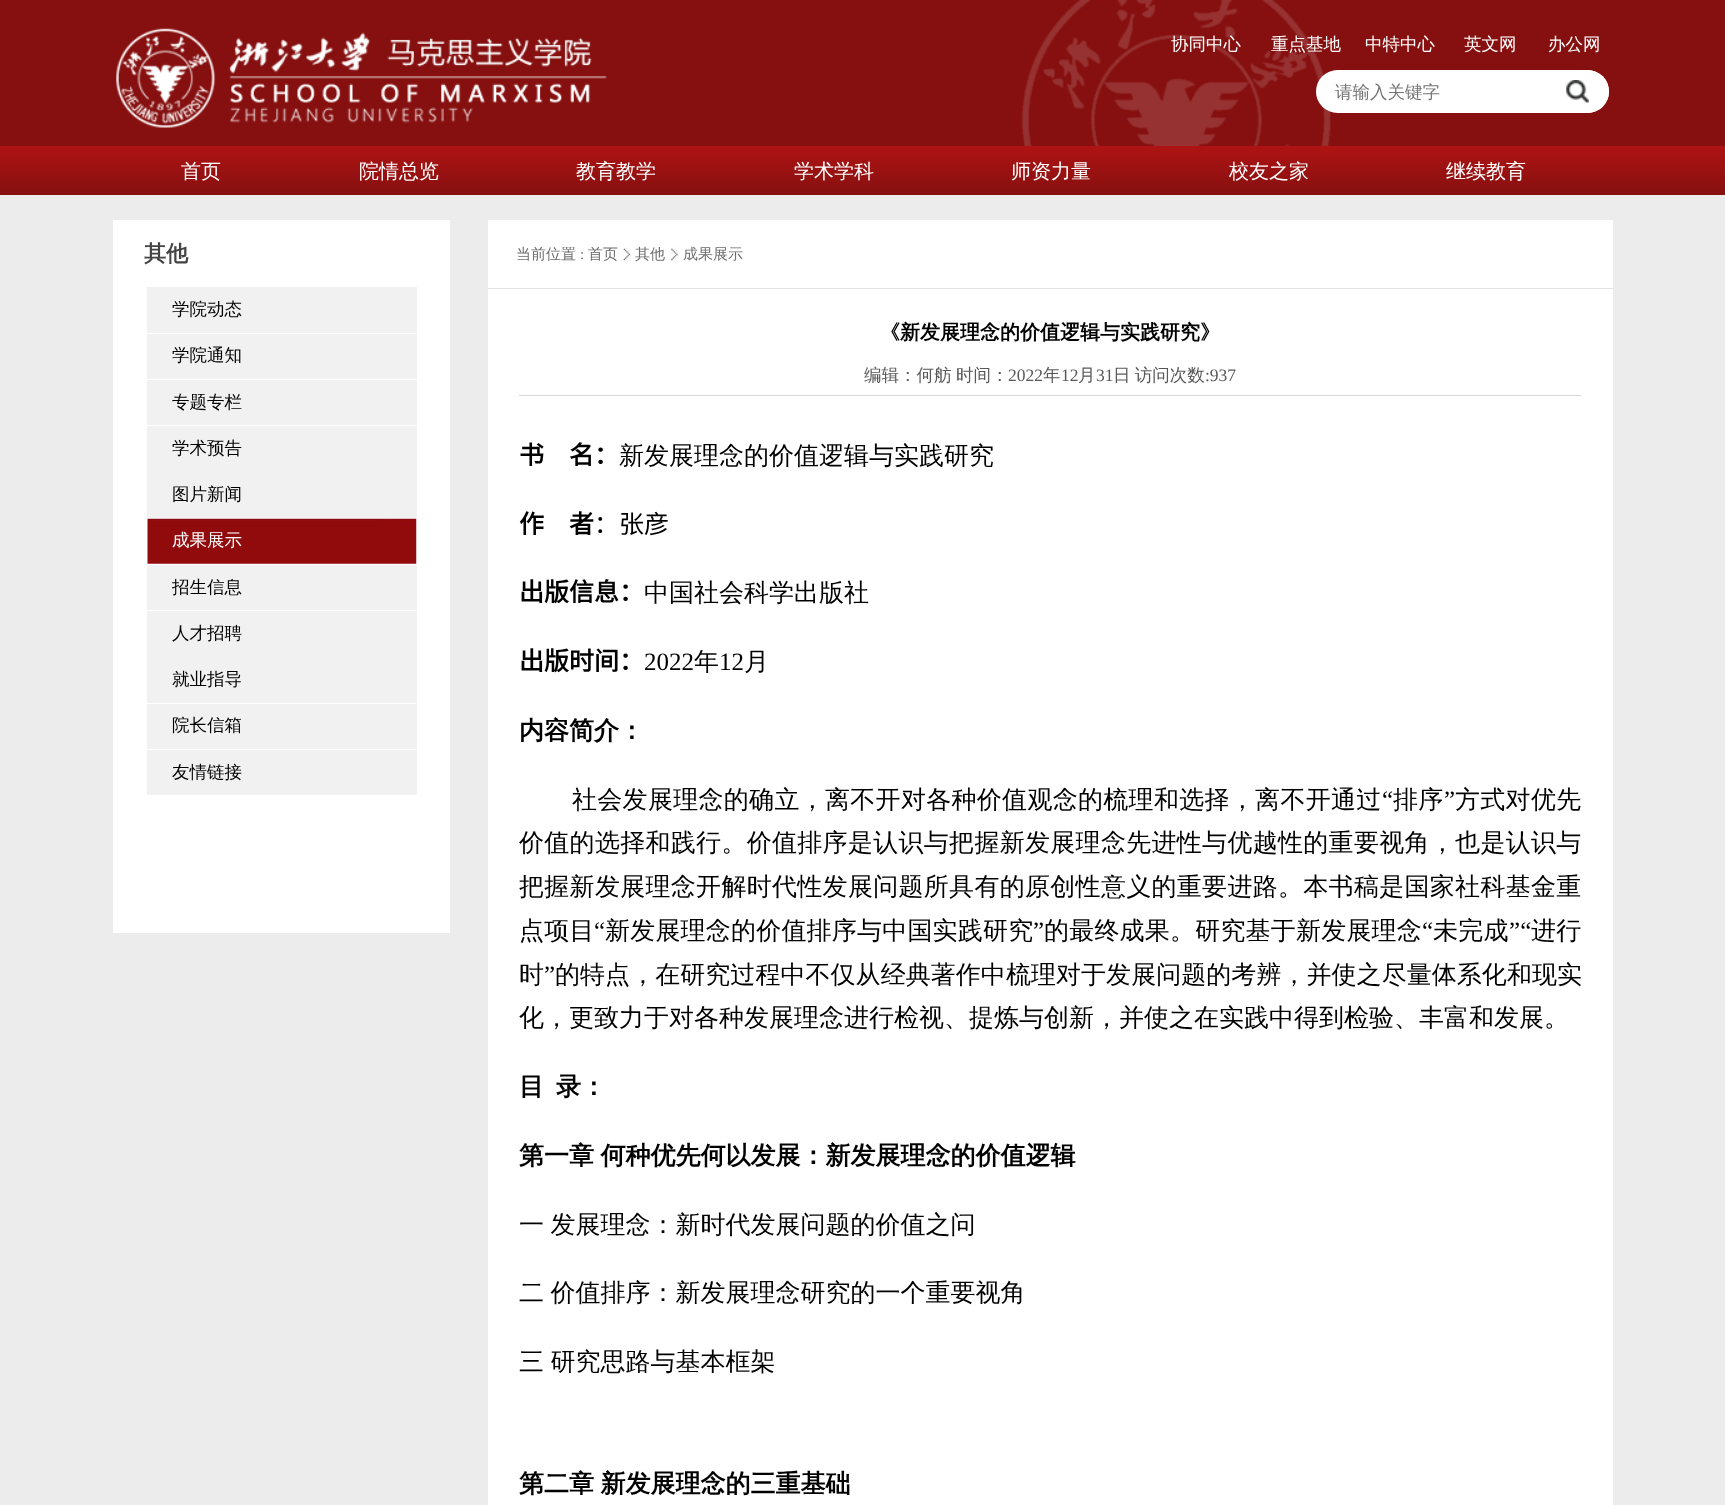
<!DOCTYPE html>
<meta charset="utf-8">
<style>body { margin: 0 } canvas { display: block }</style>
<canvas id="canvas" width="1725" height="1505"></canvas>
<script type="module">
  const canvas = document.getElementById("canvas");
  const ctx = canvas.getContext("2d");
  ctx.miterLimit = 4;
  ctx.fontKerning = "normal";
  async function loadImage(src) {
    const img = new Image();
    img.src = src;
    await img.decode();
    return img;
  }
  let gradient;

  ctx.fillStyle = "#ececec";
  ctx.fillRect(0, 0, 1725, 1505);
  ctx.drawImage(await loadImage("img1.png"), 0, 0, 1725, 146);
  gradient = ctx.createLinearGradient(863, 195, 863, 146);
  gradient.addColorStop(0, "#861010");
  gradient.addColorStop(1, "#af1313");
  ctx.fillStyle = gradient;
  ctx.fillRect(0, 146, 1725, 49);
  ctx.drawImage(await loadImage("img2.png"), 116, 28, 491, 100);
  ctx.font = "500 17.5px WenQuanYi Zen Hei";
  ctx.fillStyle = "#ffffff";
  ctx.fillText("协同中心", 1171, 50);
  ctx.fillText("重点基地", 1271, 50);
  ctx.fillText("中特中心", 1365, 50);
  ctx.fillText("英文网", 1464, 50);
  ctx.fillText("办公网", 1548, 50);
  ctx.beginPath();
  ctx.roundRect(1316, 70, 293, 43, 21.5);
  ctx.fill();
  ctx.fillStyle = "#757575";
  ctx.fillText("请输入关键字", 1335, 98);
  ctx.fillStyle = "#ffffff";
  ctx.beginPath();
  ctx.roundRect(1546, 70, 63, 43, [0, 21.5, 21.5, 0]);
  ctx.fill();
  ctx.drawImage(await loadImage("img3.png"), 1566, 80, 23, 23);
  ctx.font = "500 20px WenQuanYi Zen Hei";
  ctx.fillText("首页", 181, 178);
  ctx.fillText("院情总览", 359, 178);
  ctx.fillText("教育教学", 576, 178);
  ctx.fillText("学术学科", 794, 178);
  ctx.fillText("师资力量", 1011, 178);
  ctx.fillText("校友之家", 1229, 178);
  ctx.fillText("继续教育", 1446, 178);
  ctx.fillRect(113, 220, 337, 713);
  ctx.font = "bold 22px WenQuanYi Zen Hei";
  ctx.fillStyle = "#444444";
  ctx.fillText("其他", 144, 261);
  ctx.fillStyle = "#f1f1f1";
  ctx.fillRect(147, 287, 270, 46);
  ctx.font = "500 17.5px WenQuanYi Zen Hei";
  ctx.fillStyle = "#000000";
  ctx.fillText("学院动态", 172, 315);
  ctx.fillStyle = "#f1f1f1";
  ctx.fillRect(147, 334, 270, 45);
  ctx.fillStyle = "#000000";
  ctx.fillText("学院通知", 172, 361);
  ctx.fillStyle = "#f1f1f1";
  ctx.fillRect(147, 380, 270, 45);
  ctx.fillStyle = "#000000";
  ctx.fillText("专题专栏", 172, 408);
  ctx.fillStyle = "#f1f1f1";
  ctx.fillRect(147, 426, 270, 92);
  ctx.fillStyle = "#000000";
  ctx.fillText("学术预告", 172, 454);
  ctx.fillText("图片新闻", 172, 500);
  ctx.drawImage(await loadImage("img4.png"), 147, 518, 270, 46);
  ctx.fillStyle = "#ffffff";
  ctx.fillText("成果展示", 172, 546);
  ctx.fillStyle = "#f1f1f1";
  ctx.fillRect(147, 565, 270, 45);
  ctx.fillStyle = "#000000";
  ctx.fillText("招生信息", 172, 593);
  ctx.fillStyle = "#f1f1f1";
  ctx.fillRect(147, 611, 270, 92);
  ctx.fillStyle = "#000000";
  ctx.fillText("人才招聘", 172, 639);
  ctx.fillText("就业指导", 172, 685);
  ctx.fillStyle = "#f1f1f1";
  ctx.fillRect(147, 704, 270, 45);
  ctx.fillStyle = "#000000";
  ctx.fillText("院长信箱", 172, 731);
  ctx.fillStyle = "#f1f1f1";
  ctx.fillRect(147, 750, 270, 45);
  ctx.fillStyle = "#000000";
  ctx.fillText("友情链接", 172, 778);
  ctx.fillStyle = "#ffffff";
  ctx.fillRect(488, 220, 1125, 1285);
  ctx.fillStyle = "#e2e2e2";
  ctx.fillRect(488, 288, 1125, 1);
  ctx.font = "500 15px WenQuanYi Zen Hei";
  ctx.fillStyle = "#6c6c6c";
  ctx.fillText("当前位置", 516, 259);
  ctx.font = "15px Liberation Serif";
  ctx.fillText(":", 580, 259);
  ctx.font = "500 15px WenQuanYi Zen Hei";
  ctx.fillText("首页", 588, 259);
  ctx.drawImage(await loadImage("img5.png"), 622, 247, 10, 14);
  ctx.fillText("其他", 635, 259);
  ctx.drawImage(await loadImage("img6.png"), 670, 247, 9, 14);
  ctx.fillText("成果展示", 683, 259);
  ctx.font = "bold 20px WenQuanYi Zen Hei";
  ctx.fillStyle = "#000000";
  ctx.fillText("《新发展理念的价值逻辑与实践研究》", 880, 339);
  ctx.fillStyle = "#d6d6d6";
  ctx.fillRect(519, 395, 1062, 1);
  ctx.font = "500 17.5px WenQuanYi Zen Hei";
  ctx.fillStyle = "#585858";
  ctx.fillText("编辑：何舫", 864, 381);
  ctx.fillText("时间：", 956, 381);
  ctx.font = "17.5px Liberation Serif";
  ctx.fillText("2022", 1008, 381);
  ctx.font = "500 17.5px WenQuanYi Zen Hei";
  ctx.fillText("年", 1043, 381);
  ctx.font = "17.5px Liberation Serif";
  ctx.fillText("12", 1061, 381);
  ctx.font = "500 17.5px WenQuanYi Zen Hei";
  ctx.fillText("月", 1078, 381);
  ctx.font = "17.5px Liberation Serif";
  ctx.fillText("31", 1096, 381);
  ctx.wordSpacing = "-1px";
  ctx.font = "500 17.5px WenQuanYi Zen Hei";
  ctx.fillText("日 访问次数", 1113, 381);
  ctx.wordSpacing = "0px";
  ctx.font = "17.5px Liberation Serif";
  ctx.fillText(":937", 1205, 381);
  ctx.font = "bold 25px Noto Sans CJK SC";
  ctx.fillStyle = "#000000";
  ctx.fillText("书", 519, 464);
  ctx.fillText("名：", 569, 464);
  ctx.font = "500 25px WenQuanYi Zen Hei";
  ctx.fillText("新发展理念的价值逻辑与实践研究", 619, 464);
  ctx.font = "bold 25px Noto Sans CJK SC";
  ctx.fillText("作", 519, 533);
  ctx.fillText("者", 569, 533);
  ctx.font = "25px Noto Sans CJK SC";
  ctx.fillText("：张彦", 594, 533);
  ctx.font = "bold 25px Noto Sans CJK SC";
  ctx.fillText("出版信息：", 519, 601);
  ctx.font = "500 25px WenQuanYi Zen Hei";
  ctx.fillText("中国社会科学出版社", 644, 601);
  ctx.font = "bold 25px Noto Sans CJK SC";
  ctx.fillText("出版时间：", 519, 670);
  ctx.font = "25px Liberation Serif";
  ctx.fillText("2022", 644, 670);
  ctx.font = "500 25px WenQuanYi Zen Hei";
  ctx.fillText("年", 694, 670);
  ctx.font = "25px Liberation Serif";
  ctx.fillText("12", 719, 670);
  ctx.font = "500 25px WenQuanYi Zen Hei";
  ctx.fillText("月", 744, 670);
  ctx.font = "bold 25px WenQuanYi Zen Hei";
  ctx.fillText("内容简介：", 519, 739);
  ctx.letterSpacing = "0.3px";
  ctx.font = "500 25px WenQuanYi Zen Hei";
  ctx.fillText("社会发展理念的确立，离不开对各种价值观念的梳理和选择，离不开通过", 572, 808);
  ctx.font = "25px Liberation Serif";
  ctx.fillText("“", 1382, 808);
  ctx.font = "500 25px WenQuanYi Zen Hei";
  ctx.fillText("排序", 1393, 808);
  ctx.font = "25px Liberation Serif";
  ctx.fillText("”", 1444, 808);
  ctx.font = "500 25px WenQuanYi Zen Hei";
  ctx.fillText("方式对优先", 1455, 808);
  ctx.fillText("价值的选择和践行。价值排序是认识与把握新发展理念先进性与优越性的重要视角，也是认识与", 519, 851);
  ctx.fillText("把握新发展理念开解时代性发展问题所具有的原创性意义的重要进路。本书稿是国家社科基金重", 519, 895);
  ctx.letterSpacing = "0.2px";
  ctx.fillText("点项目", 519, 939);
  ctx.font = "25px Liberation Serif";
  ctx.fillText("“", 594, 939);
  ctx.font = "500 25px WenQuanYi Zen Hei";
  ctx.fillText("新发展理念的价值排序与中国实践研究", 605, 939);
  ctx.font = "25px Liberation Serif";
  ctx.fillText("”", 1033, 939);
  ctx.font = "500 25px WenQuanYi Zen Hei";
  ctx.fillText("的最终成果。研究基于新发展理念", 1044, 939);
  ctx.font = "25px Liberation Serif";
  ctx.fillText("“", 1422, 939);
  ctx.font = "500 25px WenQuanYi Zen Hei";
  ctx.fillText("未完成", 1433, 939);
  ctx.font = "25px Liberation Serif";
  ctx.fillText("”“", 1509, 939);
  ctx.font = "500 25px WenQuanYi Zen Hei";
  ctx.fillText("进行", 1531, 939);
  ctx.letterSpacing = "0.05px";
  ctx.fillText("时", 519, 983);
  ctx.font = "25px Liberation Serif";
  ctx.fillText("”", 544, 983);
  ctx.font = "500 25px WenQuanYi Zen Hei";
  ctx.fillText("的特点，在研究过程中不仅从经典著作中梳理对于发展问题的考辨，并使之尽量体系化和现实", 555, 983);
  ctx.letterSpacing = "0px";
  ctx.fillText("化，更致力于对各种发展理念进行检视、提炼与创新，并使之在实践中得到检验、丰富和发展。", 519, 1026);
  ctx.font = "bold 25px WenQuanYi Zen Hei";
  ctx.fillText("目", 519, 1095);
  ctx.fillText("录：", 556, 1095);
  ctx.wordSpacing = "-1px";
  ctx.fillText("第一章 何种优先何以发展：新发展理念的价值逻辑", 519, 1164);
  ctx.font = "500 25px WenQuanYi Zen Hei";
  ctx.fillText("一 发展理念：新时代发展问题的价值之问", 519, 1233);
  ctx.fillText("二 价值排序：新发展理念研究的一个重要视角", 519, 1301);
  ctx.fillText("三 研究思路与基本框架", 519, 1370);
  ctx.font = "bold 25px WenQuanYi Zen Hei";
  ctx.fillText("第二章 新发展理念的三重基础", 519, 1492);
</script>
